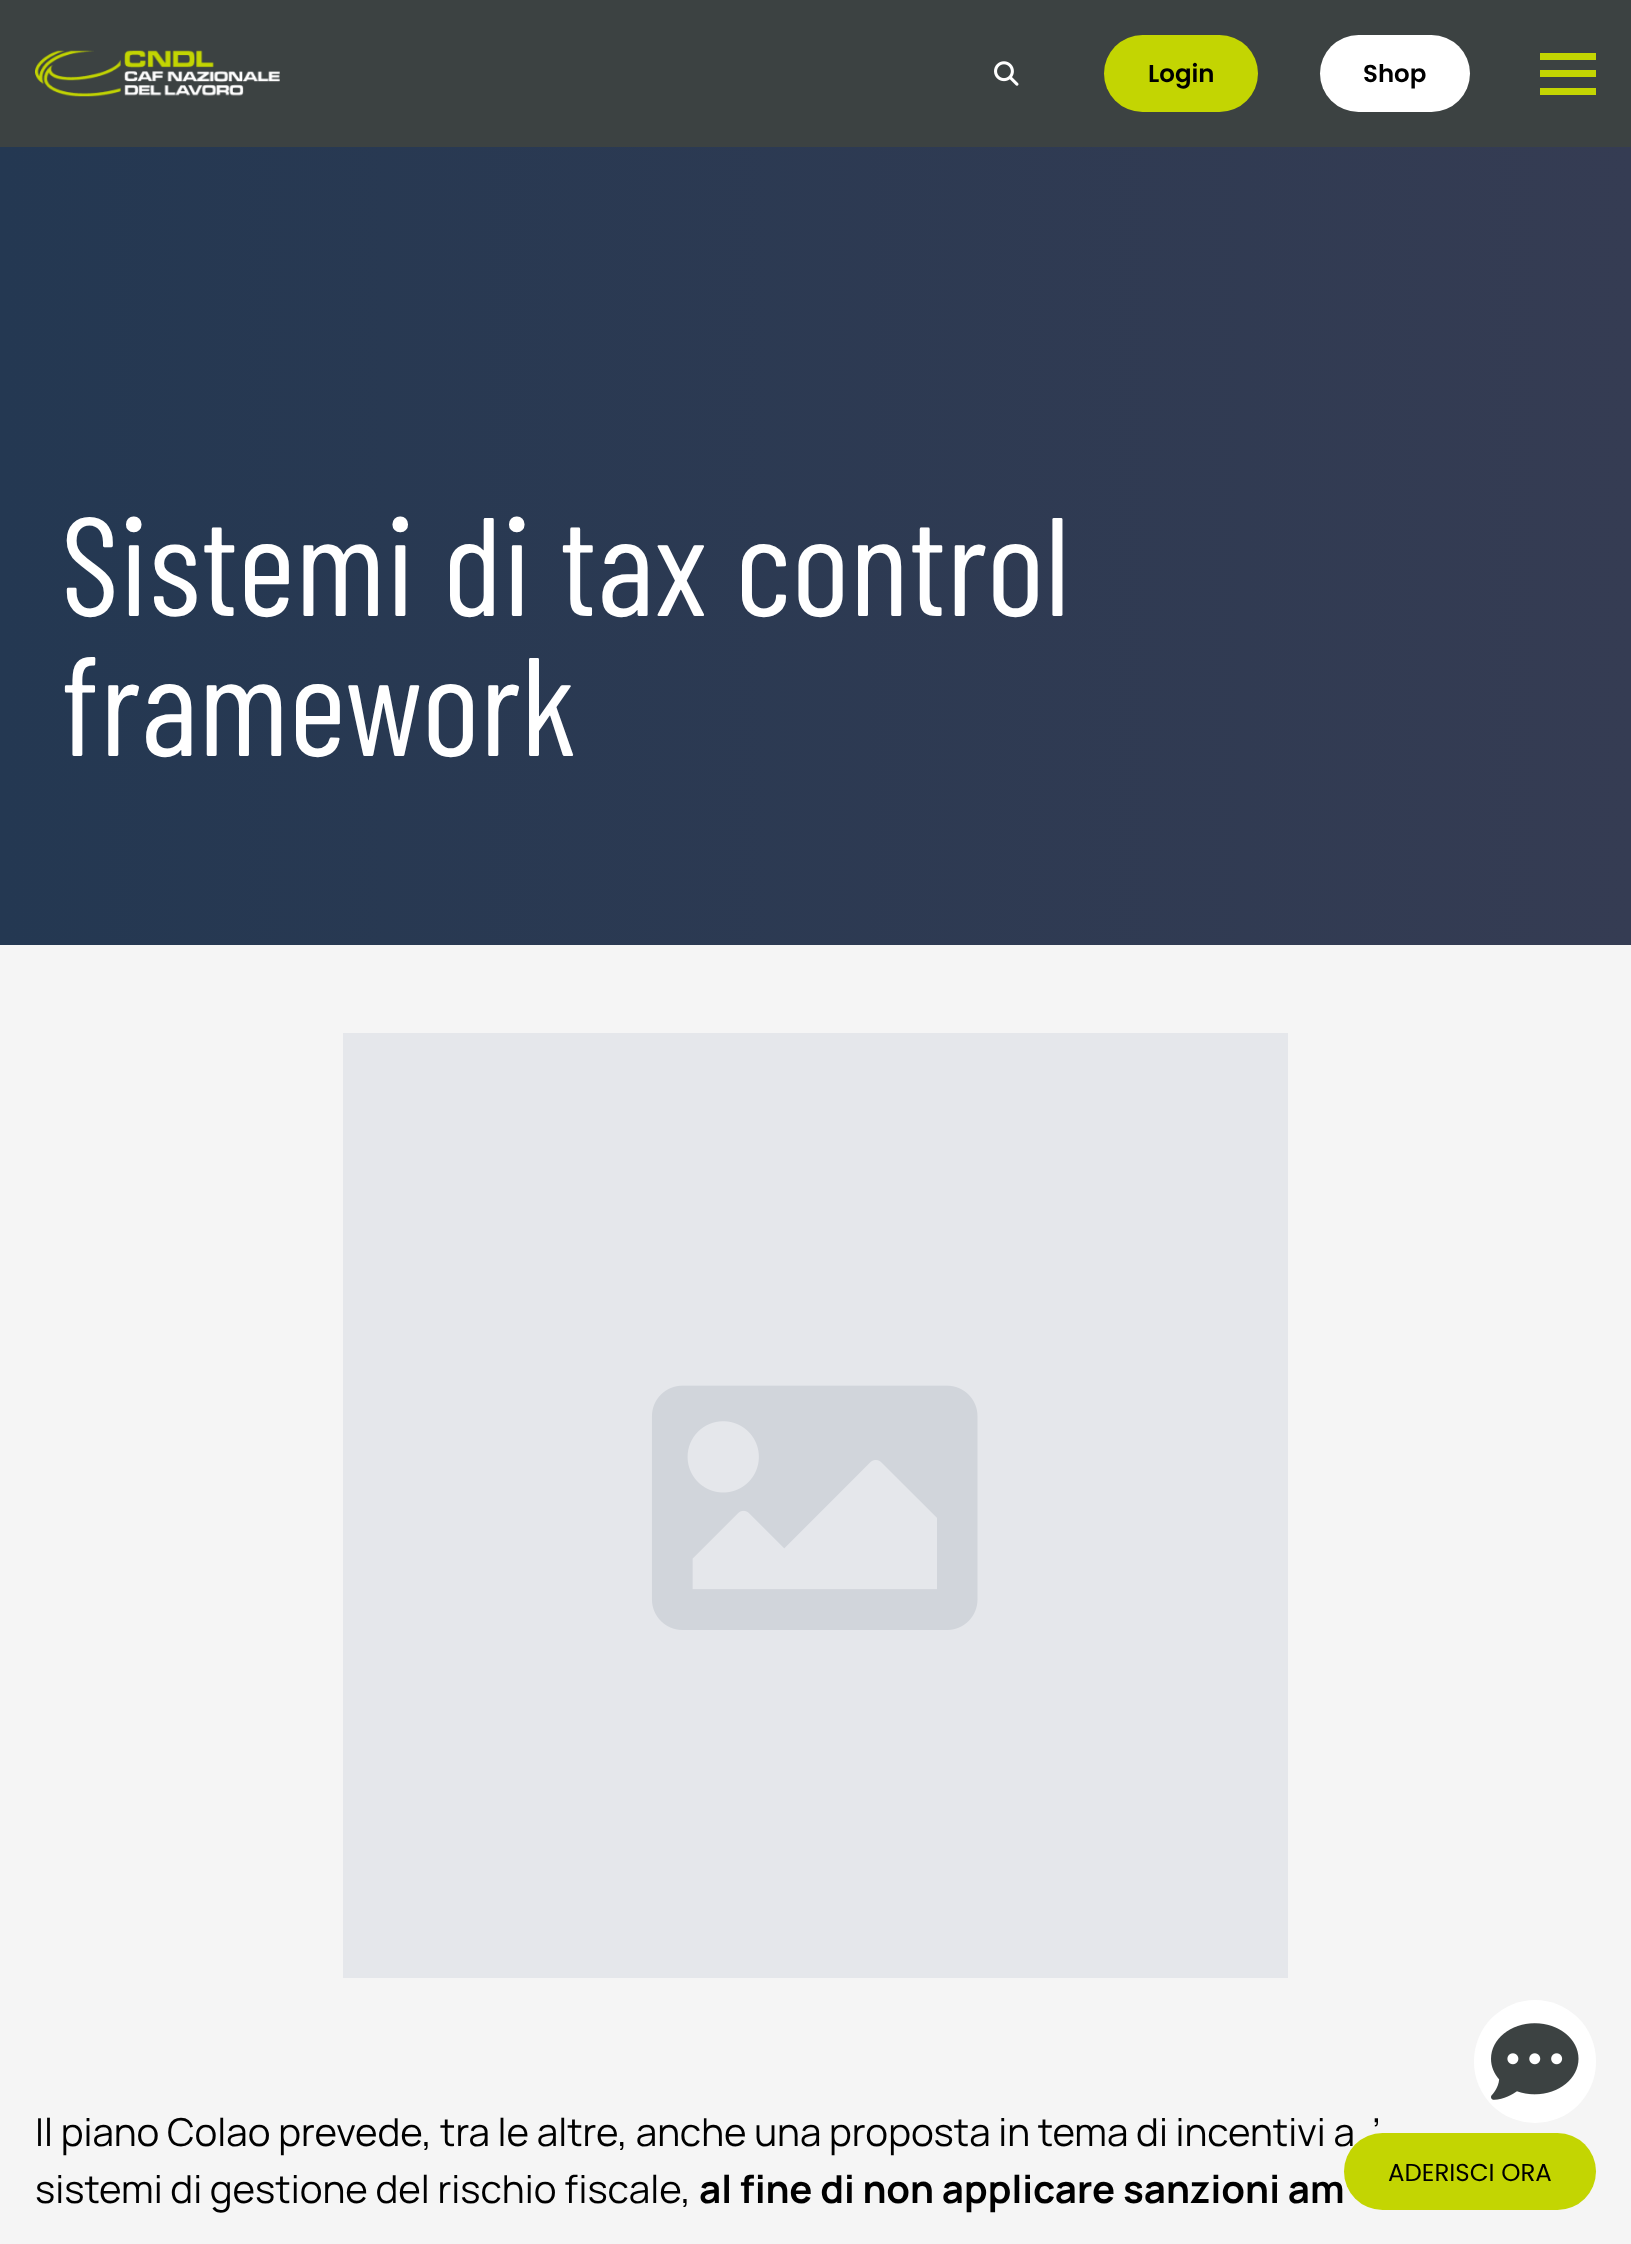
<!DOCTYPE html>
<meta charset="utf-8">
<style>body { margin: 0 } canvas { display: block }</style>
<canvas id="canvas" width="1631" height="2244"></canvas>
<script type="module">
  const canvas = document.getElementById("canvas");
  const ctx = canvas.getContext("2d");
  ctx.miterLimit = 4;
  ctx.fontKerning = "normal";
  async function loadImage(src) {
    const img = new Image();
    img.src = src;
    await img.decode();
    return img;
  }
  let gradient;

  ctx.fillStyle = "#f5f5f5";
  ctx.fillRect(0, 0, 1631, 2244);
  ctx.fillStyle = "#3c4242";
  ctx.fillRect(0, 0, 1631, 147);
  ctx.drawImage(await loadImage("img1.png"), 35, 50, 245, 47);
  ctx.drawImage(await loadImage("img2.png"), 994, 61, 25, 25);
  ctx.fillStyle = "#c3d502";
  ctx.beginPath();
  ctx.roundRect(1104, 35, 154, 77, 38.5);
  ctx.fill();
  ctx.font = "600 24.5px Poppins";
  ctx.fillStyle = "#000000";
  ctx.fillText("Login", 1148, 82);
  ctx.fillStyle = "#ffffff";
  ctx.beginPath();
  ctx.roundRect(1320, 35, 150, 77, 38.5);
  ctx.fill();
  ctx.fillStyle = "#000000";
  ctx.fillText("Shop", 1363, 82);
  ctx.fillStyle = "#c3d502";
  ctx.fillRect(1540, 70, 56, 7);
  ctx.fillRect(1540, 53, 56, 7);
  ctx.fillRect(1540, 88, 56, 7);
  gradient = ctx.createLinearGradient(1631, 472, 0, 473);
  gradient.addColorStop(0, "#353c53");
  gradient.addColorStop(1, "#243852");
  ctx.fillStyle = gradient;
  ctx.fillRect(0, 147, 1631, 798);
  ctx.font = "140px Barlow Condensed";
  ctx.fillStyle = "#ffffff";
  ctx.fillText("Sistemi di tax control", 61, 616);
  ctx.fillText("framework", 61, 756);
  ctx.drawImage(await loadImage("img3.png"), 343, 1033, 945, 945);
  ctx.font = "38.5px Manrope";
  ctx.fillStyle = "#000000";
  ctx.fillText("Il piano Colao prevede, tra le altre, anche una proposta in tema di incentivi a", 35, 2146);
  ctx.fillText("’", 1372, 2146);
  ctx.fillText("sistemi di gestione del rischio fiscale,", 35, 2203);
  ctx.font = "bold 38.5px Manrope";
  ctx.fillText("al fine di non applicare sanzioni am", 699, 2203);
  ctx.fillStyle = "#ffffff";
  ctx.beginPath();
  ctx.roundRect(1474, 2000, 122, 123, 61);
  ctx.fill();
  ctx.drawImage(await loadImage("img4.png"), 1491, 2023, 88, 77);
  ctx.fillStyle = "#c3d502";
  ctx.beginPath();
  ctx.roundRect(1344, 2133, 252, 77, 38.5);
  ctx.fill();
  ctx.font = "24.5px Poppins";
  ctx.fillStyle = "#000000";
  ctx.fillText("ADERISCI ORA", 1388, 2181);
</script>
